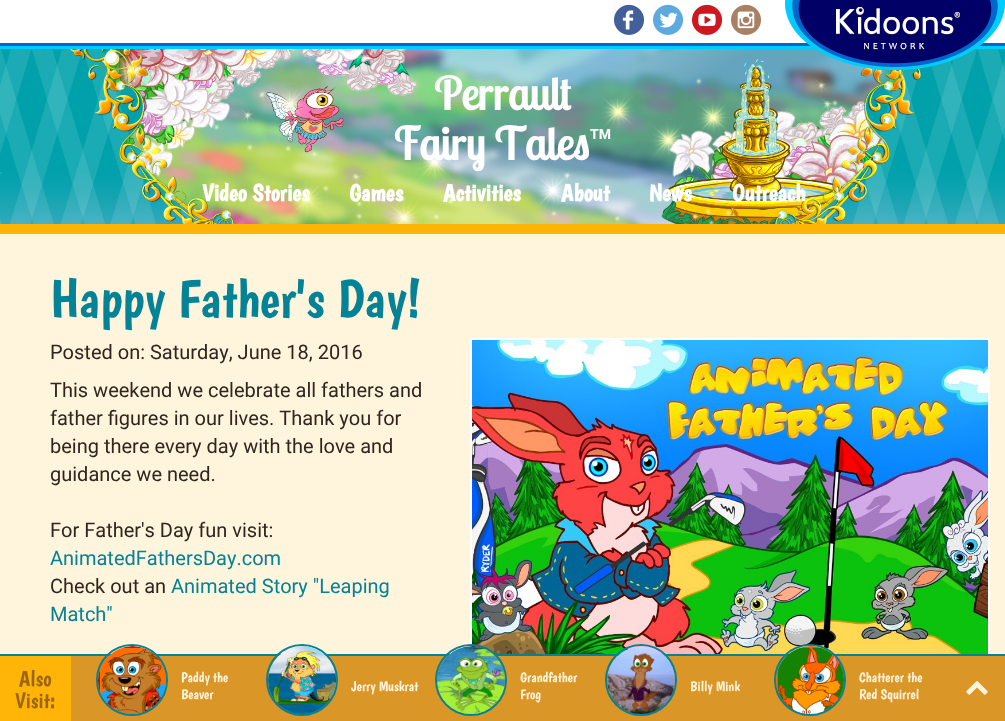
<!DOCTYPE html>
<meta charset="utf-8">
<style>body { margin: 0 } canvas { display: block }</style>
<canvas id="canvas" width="1005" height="721"></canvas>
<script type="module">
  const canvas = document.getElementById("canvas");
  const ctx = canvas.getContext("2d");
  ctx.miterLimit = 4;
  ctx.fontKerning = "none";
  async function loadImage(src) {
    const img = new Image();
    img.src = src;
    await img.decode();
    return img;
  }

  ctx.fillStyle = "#ffffff";
  ctx.fillRect(0, 0, 1005, 721);
  ctx.drawImage(await loadImage("img1.png"), 614, 4, 30, 31);
  ctx.drawImage(await loadImage("img2.png"), 653, 4, 30, 31);
  ctx.drawImage(await loadImage("img3.png"), 692, 4, 30, 31);
  ctx.drawImage(await loadImage("img4.png"), 731, 4, 30, 31);
  ctx.drawImage(await loadImage("img6.png"), 0, 43, 1005, 6);
  ctx.drawImage(await loadImage("img7.png"), 0, 49, 1005, 175);
  ctx.drawImage(await loadImage("img5.png"), 785, 0, 220, 70);
  ctx.fillStyle = "#ffb407";
  ctx.fillRect(0, 224, 1005, 10);
  ctx.font = "bold 45px Lobster Two";
  ctx.fillStyle = "#ffffff";
  ctx.fillText("Perrault", 434, 110);
  ctx.fillText("Fairy Tales", 394, 160);
  ctx.font = "bold 14px Roboto";
  ctx.fillText("TM", 590, 139);
  ctx.fillStyle = "#1babb4";
  ctx.fillRect(0, 172, 2, 2);
  ctx.font = "bold 24px Boogaloo";
  ctx.fillStyle = "#ffffff";
  ctx.fillText("Video Stories", 202, 201);
  ctx.fillText("Games", 349, 201);
  ctx.fillText("Activities", 443, 201);
  ctx.fillText("About", 561, 201);
  ctx.fillText("News", 649, 201);
  ctx.fillText("Outreach", 732, 201);
  ctx.fillStyle = "#fff4dc";
  ctx.fillRect(0, 234, 1005, 420);
  ctx.font = "54px Boogaloo";
  ctx.fillStyle = "#048296";
  ctx.fillText("Happy Father's Day!", 50, 317);
  ctx.font = "20px Roboto";
  ctx.fillStyle = "#31251f";
  ctx.fillText("Posted on: Saturday, June 18, 2016", 50, 359);
  ctx.strokeStyle = "#ffffff";
  ctx.lineWidth = 2;
  ctx.strokeRect(471, 339, 518, 346);
  ctx.drawImage(await loadImage("img8.png"), 472, 340, 516, 314);
  ctx.fillText("This weekend we celebrate all fathers and", 50, 397);
  ctx.fillText("father figures in our lives. Thank you for", 50, 425);
  ctx.fillText("being there every day with the love and", 50, 453);
  ctx.fillText("guidance we need.", 50, 481);
  ctx.fillText("For Father's Day fun visit:", 50, 537);
  ctx.fillStyle = "#048296";
  ctx.fillText("AnimatedFathersDay.com", 50, 565);
  ctx.fillStyle = "#31251f";
  ctx.fillText("Check out an", 50, 593);
  ctx.fillStyle = "#048296";
  ctx.fillText("Animated Story \"Leaping", 171, 593);
  ctx.fillText("Match\"", 50, 621);
  ctx.fillStyle = "#db9628";
  ctx.fillRect(71, 656, 934, 65);
  ctx.fillStyle = "#048296";
  ctx.fillRect(0, 654, 1005, 2);
  ctx.fillStyle = "#ffb407";
  ctx.fillRect(0, 656, 71, 65);
  ctx.font = "22px Boogaloo";
  ctx.fillStyle = "#9c660f";
  ctx.fillText("Also", 19, 686);
  ctx.fillText("Visit:", 15, 708);
  ctx.beginPath();
  ctx.arc(132, 680, 35, 0, Math.PI * 2);
  ctx.strokeStyle = "#048296";
  ctx.stroke();
  ctx.drawImage(await loadImage("img9.png"), 98, 646, 68, 68);
  ctx.font = "14px Boogaloo";
  ctx.fillStyle = "#fff4dc";
  ctx.fillText("Paddy the", 181, 682);
  ctx.fillText("Beaver", 181, 699);
  ctx.beginPath();
  ctx.arc(302, 680, 35, 0, Math.PI * 2);
  ctx.stroke();
  ctx.drawImage(await loadImage("img10.png"), 268, 646, 68, 68);
  ctx.fillText("Jerry Muskrat", 351, 691);
  ctx.beginPath();
  ctx.arc(471, 680, 35, 0, Math.PI * 2);
  ctx.stroke();
  ctx.drawImage(await loadImage("img11.png"), 437, 646, 68, 68);
  ctx.fillText("Grandfather", 520, 682);
  ctx.fillText("Frog", 520, 699);
  ctx.beginPath();
  ctx.arc(641, 680, 35, 0, Math.PI * 2);
  ctx.stroke();
  ctx.drawImage(await loadImage("img12.png"), 607, 646, 68, 68);
  ctx.fillText("Billy Mink", 690, 691);
  ctx.beginPath();
  ctx.arc(810, 680, 35, 0, Math.PI * 2);
  ctx.stroke();
  ctx.drawImage(await loadImage("img13.png"), 776, 646, 68, 68);
  ctx.fillText("Chatterer the", 859, 682);
  ctx.fillText("Red Squirrel", 859, 699);
  ctx.drawImage(await loadImage("img14.png"), 966, 681, 22, 14);
</script>
